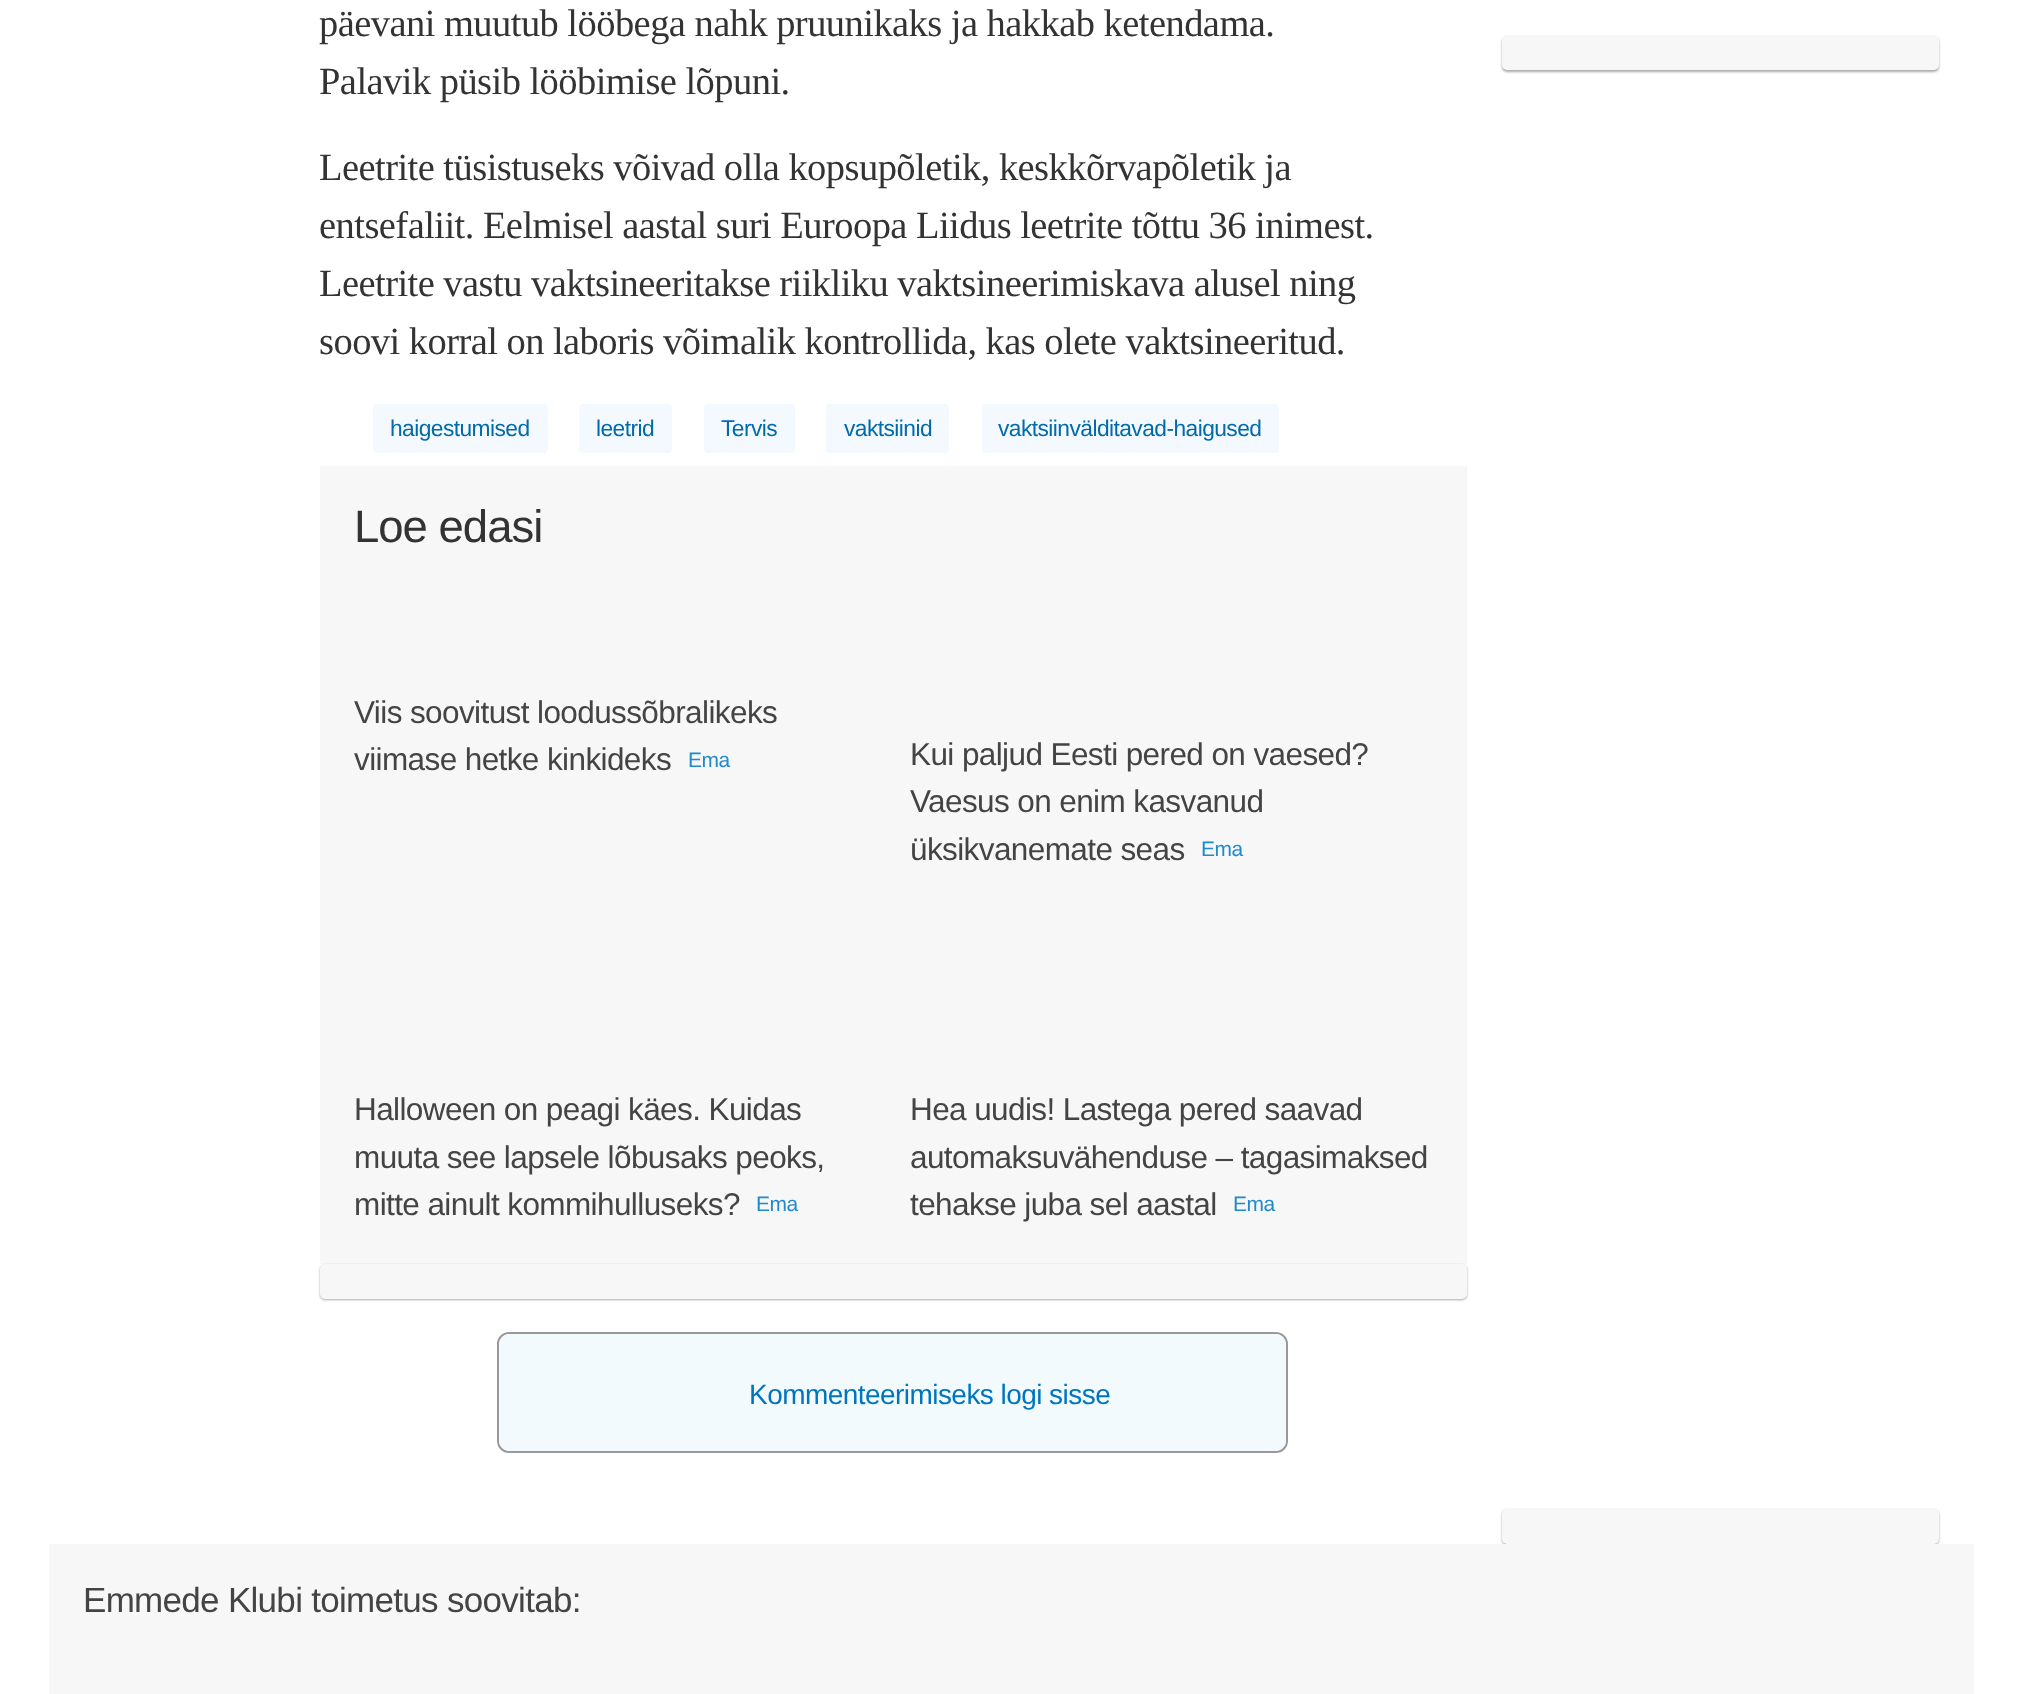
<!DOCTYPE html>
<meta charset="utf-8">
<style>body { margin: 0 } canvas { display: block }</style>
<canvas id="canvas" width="2020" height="1694"></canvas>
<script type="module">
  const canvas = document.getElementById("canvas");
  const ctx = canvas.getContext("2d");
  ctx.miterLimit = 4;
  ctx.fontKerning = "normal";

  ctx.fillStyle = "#ffffff";
  ctx.fillRect(0, 0, 2020, 1694);
  ctx.letterSpacing = "-0.55px";
  ctx.font = "38.5px Liberation Serif";
  ctx.fillStyle = "#333333";
  ctx.fillText("päevani muutub lööbega nahk pruunikaks ja hakkab ketendama.", 319, 36);
  ctx.fillText("Palavik püsib lööbimise lõpuni.", 319, 94);
  ctx.fillText("Leetrite tüsistuseks võivad olla kopsupõletik, keskkõrvapõletik ja", 319, 180);
  ctx.fillText("entsefaliit. Eelmisel aastal suri Euroopa Liidus leetrite tõttu 36 inimest.", 319, 238);
  ctx.fillText("Leetrite vastu vaktsineeritakse riikliku vaktsineerimiskava alusel ning", 319, 296);
  ctx.fillText("soovi korral on laboris võimalik kontrollida, kas olete vaktsineeritud.", 319, 354);
  ctx.fillStyle = "#f3f9ff";
  ctx.beginPath();
  ctx.roundRect(373, 404, 175, 49, 4);
  ctx.fill();
  ctx.font = "22.75px Liberation Sans";
  ctx.fillStyle = "#006aaa";
  ctx.fillText("haigestumised", 390, 436);
  ctx.fillStyle = "#f3f9ff";
  ctx.beginPath();
  ctx.roundRect(579, 404, 93, 49, 4);
  ctx.fill();
  ctx.fillStyle = "#006aaa";
  ctx.fillText("leetrid", 596, 436);
  ctx.fillStyle = "#f3f9ff";
  ctx.beginPath();
  ctx.roundRect(704, 404, 91, 49, 4);
  ctx.fill();
  ctx.fillStyle = "#006aaa";
  ctx.fillText("Tervis", 721, 436);
  ctx.fillStyle = "#f3f9ff";
  ctx.beginPath();
  ctx.roundRect(826, 404, 123, 49, 4);
  ctx.fill();
  ctx.fillStyle = "#006aaa";
  ctx.fillText("vaktsiinid", 844, 436);
  ctx.fillStyle = "#f3f9ff";
  ctx.beginPath();
  ctx.roundRect(982, 404, 297, 49, 4);
  ctx.fill();
  ctx.fillStyle = "#006aaa";
  ctx.fillText("vaktsiinvälditavad-haigused", 998, 436);
  ctx.fillStyle = "#f7f7f7";
  ctx.fillRect(320, 466, 1147, 798);
  ctx.letterSpacing = "-1px";
  ctx.font = "45.5px Liberation Sans";
  ctx.fillStyle = "#333333";
  ctx.fillText("Loe edasi", 354, 542);
  ctx.letterSpacing = "-0.6px";
  ctx.font = "31.5px Liberation Sans";
  ctx.fillStyle = "#444444";
  ctx.fillText("Viis soovitust loodussõbralikeks", 354, 723);
  ctx.fillText("viimase hetke kinkideks", 354, 770);
  ctx.letterSpacing = "-0.55px";
  ctx.font = "21px Liberation Sans";
  ctx.fillStyle = "#1f8bcc";
  ctx.fillText("Ema", 688, 767);
  ctx.letterSpacing = "-0.6px";
  ctx.font = "31.5px Liberation Sans";
  ctx.fillStyle = "#444444";
  ctx.fillText("Kui paljud Eesti pered on vaesed?", 910, 765);
  ctx.fillText("Vaesus on enim kasvanud", 910, 812);
  ctx.fillText("üksikvanemate seas", 910, 860);
  ctx.letterSpacing = "-0.55px";
  ctx.font = "21px Liberation Sans";
  ctx.fillStyle = "#1f8bcc";
  ctx.fillText("Ema", 1201, 856);
  ctx.letterSpacing = "-0.6px";
  ctx.font = "31.5px Liberation Sans";
  ctx.fillStyle = "#444444";
  ctx.fillText("Halloween on peagi käes. Kuidas", 354, 1120);
  ctx.fillText("muuta see lapsele lõbusaks peoks,", 354, 1168);
  ctx.fillText("mitte ainult kommihulluseks?", 354, 1215);
  ctx.letterSpacing = "-0.55px";
  ctx.font = "21px Liberation Sans";
  ctx.fillStyle = "#1f8bcc";
  ctx.fillText("Ema", 756, 1211);
  ctx.letterSpacing = "-0.6px";
  ctx.font = "31.5px Liberation Sans";
  ctx.fillStyle = "#444444";
  ctx.fillText("Hea uudis! Lastega pered saavad", 910, 1120);
  ctx.fillText("automaksuvähenduse – tagasimaksed", 910, 1168);
  ctx.fillText("tehakse juba sel aastal", 910, 1215);
  ctx.letterSpacing = "-0.55px";
  ctx.font = "21px Liberation Sans";
  ctx.fillStyle = "#1f8bcc";
  ctx.fillText("Ema", 1233, 1211);
  ctx.fillStyle = "#aaaaaa";
  ctx.filter = "blur(1px)";
  ctx.beginPath();
  ctx.roundRect(320, 1265, 1147, 35, 5);
  ctx.fill();
  ctx.filter = "none";
  ctx.fillStyle = "#f7f7f7";
  ctx.beginPath();
  ctx.roundRect(320, 1264, 1147, 35, 5);
  ctx.fill();
  ctx.fillStyle = "#aaaaaa";
  ctx.filter = "blur(1px)";
  ctx.beginPath();
  ctx.roundRect(1502, 37, 437, 35, 5);
  ctx.fill();
  ctx.filter = "none";
  ctx.fillStyle = "#f7f7f7";
  ctx.beginPath();
  ctx.roundRect(1502, 35, 437, 35, 5);
  ctx.fill();
  ctx.beginPath();
  ctx.roundRect(498, 1333, 789, 119, 11);
  ctx.strokeStyle = "#999999";
  ctx.lineWidth = 2;
  ctx.stroke();
  ctx.fillStyle = "#f2fafe";
  ctx.beginPath();
  ctx.roundRect(499, 1334, 787, 117, 11);
  ctx.fill();
  ctx.font = "28px Liberation Sans";
  ctx.fillStyle = "#0075bf";
  ctx.fillText("Kommenteerimiseks logi sisse", 749, 1404);
  ctx.fillStyle = "#aaaaaa";
  ctx.filter = "blur(1px)";
  ctx.beginPath();
  ctx.roundRect(1502, 1510, 437, 35, 5);
  ctx.fill();
  ctx.filter = "none";
  ctx.fillStyle = "#f7f7f7";
  ctx.beginPath();
  ctx.roundRect(1502, 1509, 437, 35, 5);
  ctx.fill();
  ctx.fillRect(49, 1544, 1925, 150);
  ctx.letterSpacing = "-0.7px";
  ctx.font = "35px Liberation Sans";
  ctx.fillStyle = "#444444";
  ctx.fillText("Emmede Klubi toimetus soovitab:", 83, 1612);
</script>
